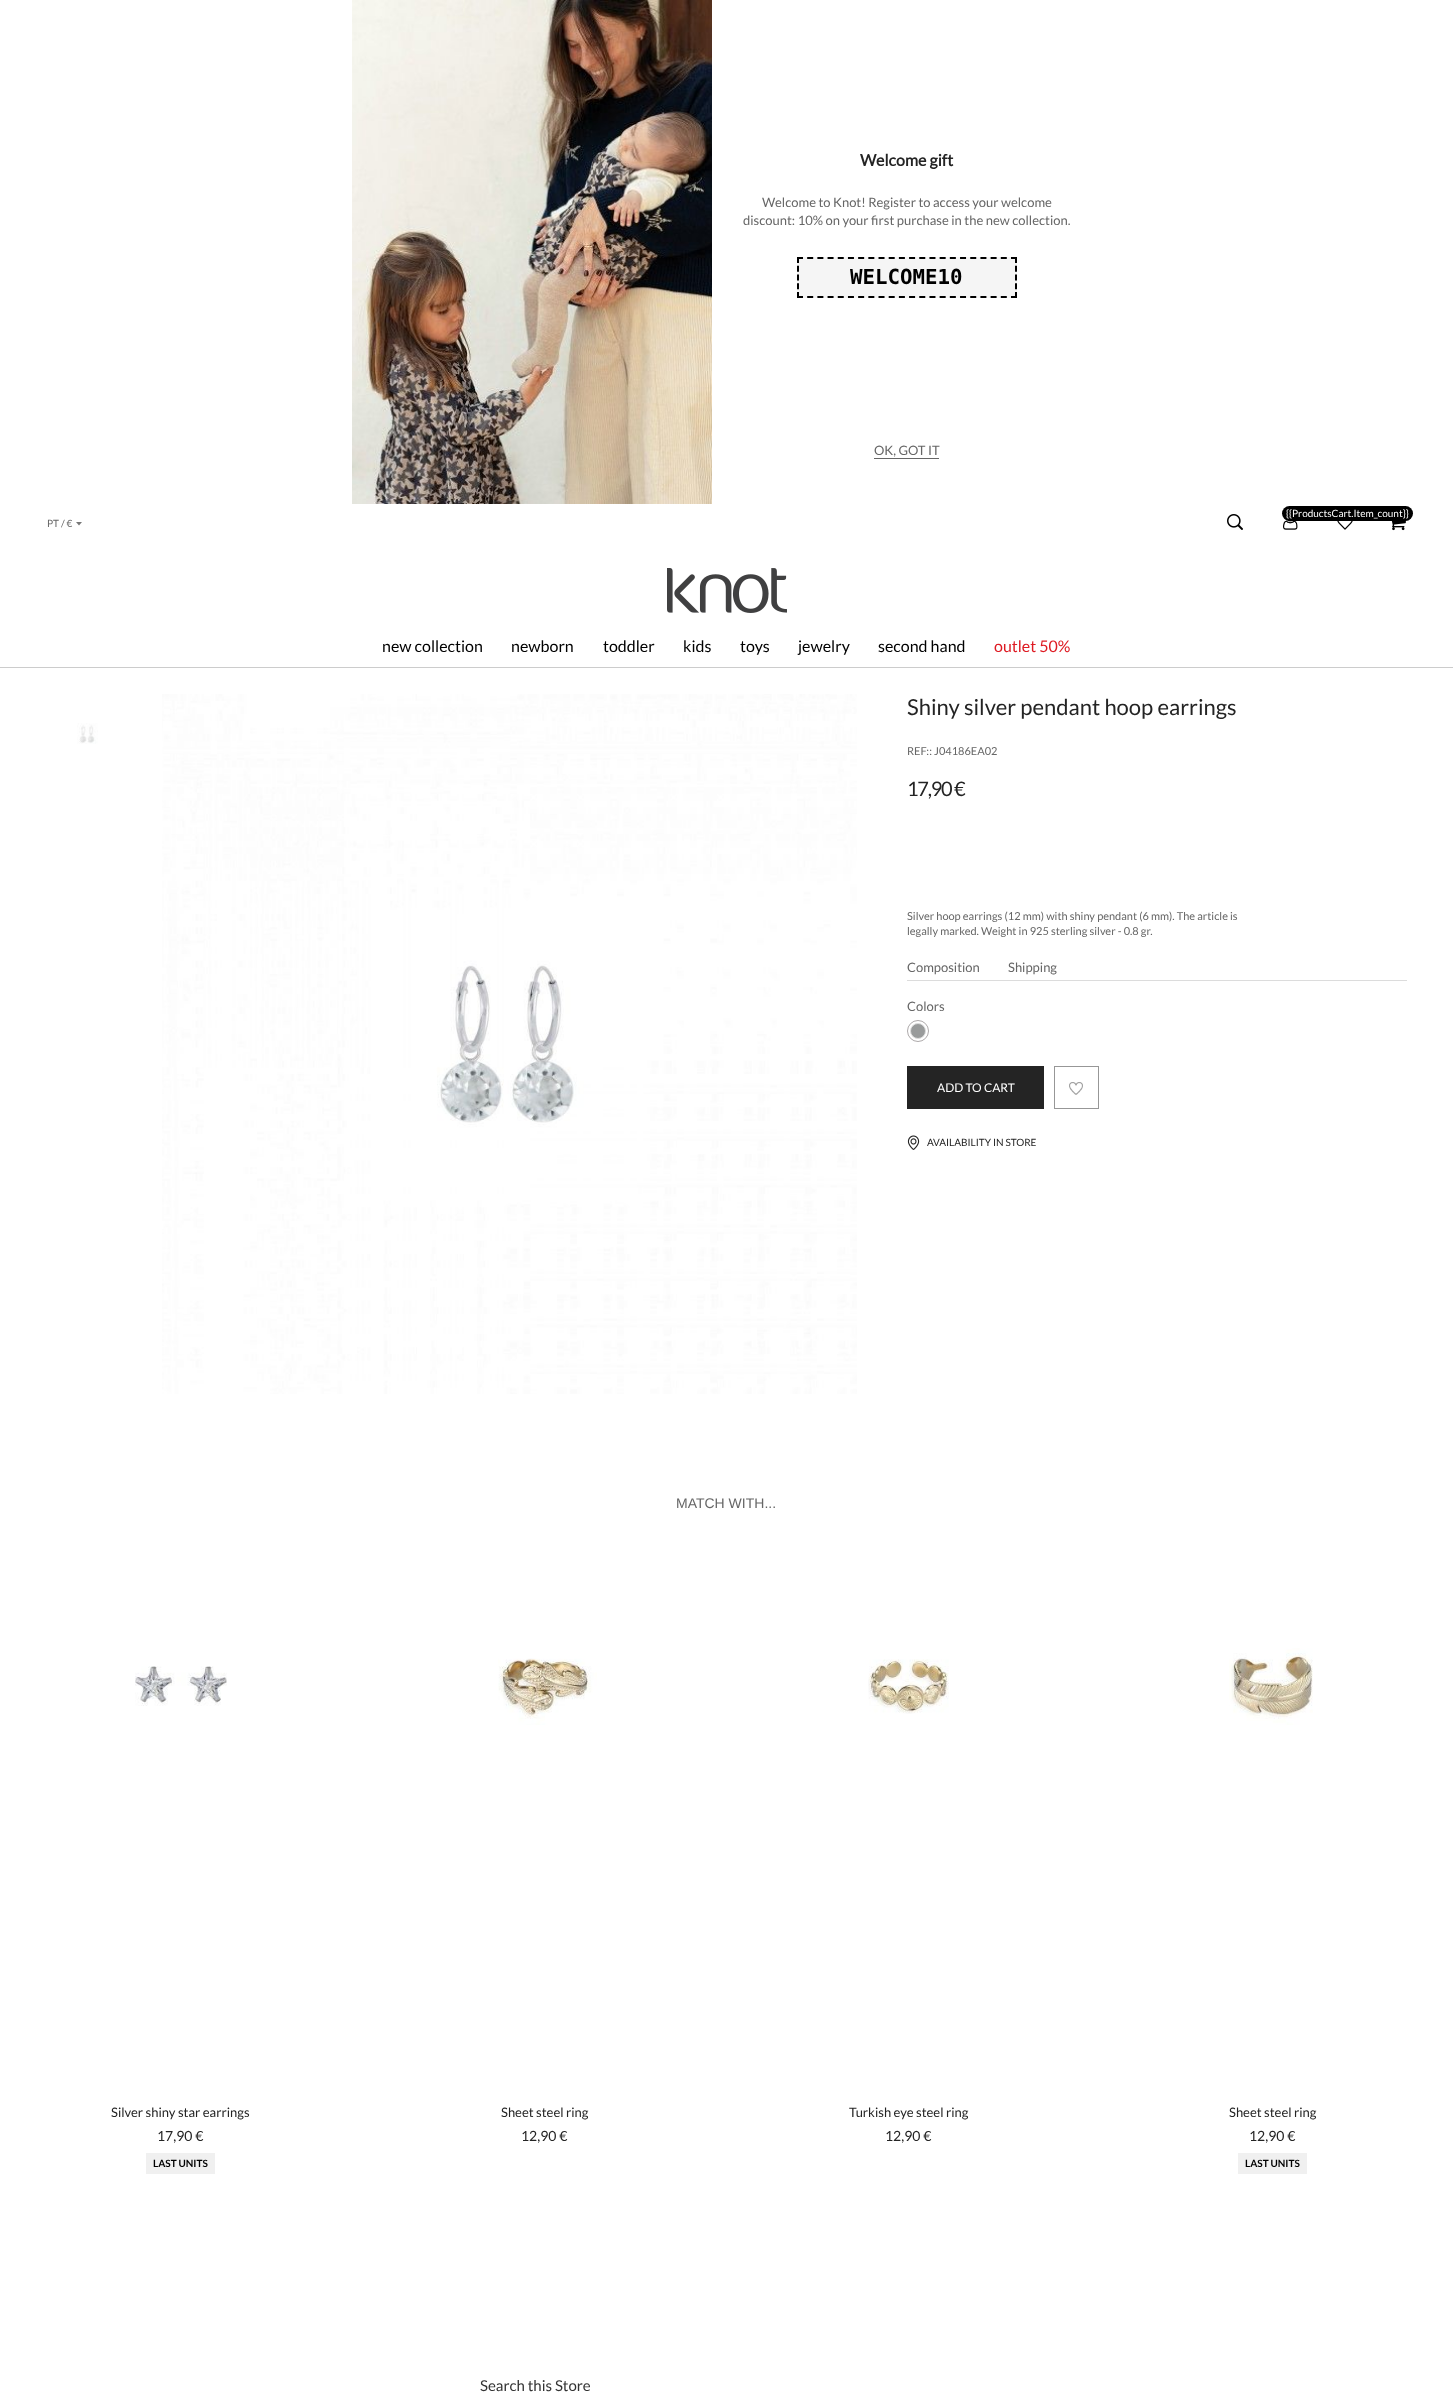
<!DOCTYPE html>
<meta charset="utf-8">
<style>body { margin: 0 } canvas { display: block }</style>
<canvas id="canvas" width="1453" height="2402"></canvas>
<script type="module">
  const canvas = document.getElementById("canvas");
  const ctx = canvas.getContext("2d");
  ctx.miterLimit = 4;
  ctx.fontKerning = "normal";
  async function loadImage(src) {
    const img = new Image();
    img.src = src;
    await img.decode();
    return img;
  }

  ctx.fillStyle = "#ffffff";
  ctx.fillRect(0, 0, 1453, 2402);
  ctx.drawImage(await loadImage("img1.png"), 352, 0, 360, 504);
  ctx.font = "bold 16px Lato";
  ctx.fillStyle = "#242424";
  ctx.fillText("Welcome gift", 860, 166);
  ctx.font = "13px Lato";
  ctx.fillStyle = "#666666";
  ctx.fillText("Welcome to Knot! Register to access your welcome", 762, 207);
  ctx.fillText("discount: 10% on your first purchase in the new collection.", 743, 225);
  ctx.fillStyle = "#f5f5f5";
  ctx.fillRect(797, 257, 220, 41);
  ctx.beginPath();
  ctx.moveTo(797, 258);
  ctx.lineTo(1017, 258);
  ctx.strokeStyle = "#000000";
  ctx.lineWidth = 2;
  ctx.setLineDash([6, 4.19]);
  ctx.stroke();
  ctx.beginPath();
  ctx.moveTo(1016, 257);
  ctx.lineTo(1016, 298);
  ctx.setLineDash([6, 2.75]);
  ctx.stroke();
  ctx.beginPath();
  ctx.moveTo(797, 297);
  ctx.lineTo(1017, 297);
  ctx.setLineDash([6, 4.19]);
  ctx.stroke();
  ctx.beginPath();
  ctx.moveTo(798, 257);
  ctx.lineTo(798, 298);
  ctx.setLineDash([6, 2.75]);
  ctx.stroke();
  ctx.font = "bold 20.75px DejaVu Sans Mono";
  ctx.fillStyle = "#000000";
  ctx.fillText("WELCOME10", 850, 284);
  ctx.fillStyle = "#666666";
  ctx.fillRect(874, 458, 65, 1);
  ctx.font = "13px Lato";
  ctx.fillText("OK, GOT IT", 874, 455);
  ctx.fillStyle = "#cccccc";
  ctx.fillRect(0, 667, 1453, 1);
  ctx.drawImage(await loadImage("img2.png"), 1227, 514, 16, 16);
  ctx.drawImage(await loadImage("img3.png"), 1391, 520, 15, 11);
  ctx.drawImage(await loadImage("img4.png"), 1283, 520, 15, 10);
  ctx.fillStyle = "#000000";
  ctx.beginPath();
  ctx.roundRect(1282, 506, 131, 15, 7.5);
  ctx.fill();
  ctx.font = "10px Lato";
  ctx.fillStyle = "#ffffff";
  ctx.fillText("{{ProductsCart.Item_count}}", 1286, 517);
  ctx.drawImage(await loadImage("img5.png"), 1337, 521, 16, 9);
  ctx.fillStyle = "#666666";
  ctx.fillText("PT / €", 47, 527);
  ctx.drawImage(await loadImage("img6.png"), 76, 522, 6, 4);
  ctx.drawImage(await loadImage("img7.png"), 667, 568, 120, 45);
  ctx.font = "16px Lato";
  ctx.fillStyle = "#000000";
  ctx.fillText("new collection", 382, 652);
  ctx.fillText("newborn", 511, 652);
  ctx.fillText("toddler", 603, 652);
  ctx.fillText("kids", 683, 652);
  ctx.fillText("toys", 740, 652);
  ctx.fillText("jewelry", 798, 652);
  ctx.fillText("second hand", 878, 652);
  ctx.fillStyle = "#de1a22";
  ctx.fillText("outlet 50%", 994, 652);
  ctx.drawImage(await loadImage("img8.png"), 77, 723, 21, 21);
  ctx.drawImage(await loadImage("img9.png"), 162, 694, 695, 700);
  ctx.font = "22px Lato";
  ctx.fillStyle = "#242424";
  ctx.fillText("Shiny silver pendant hoop earrings", 907, 715);
  ctx.font = "11px Lato";
  ctx.fillStyle = "#666666";
  ctx.fillText("REF:: J04186EA02", 907, 755);
  ctx.letterSpacing = "-1.25px";
  ctx.font = "20px Lato";
  ctx.fillStyle = "#242424";
  ctx.fillText("17,90 €", 907, 796);
  ctx.letterSpacing = "0px";
  ctx.font = "11px Lato";
  ctx.fillStyle = "#666666";
  ctx.fillText("Silver hoop earrings (12 mm) with shiny pendant (6 mm). The article is", 907, 920);
  ctx.fillText("legally marked. Weight in 925 sterling silver - 0.8 gr.", 907, 935);
  ctx.font = "13px Lato";
  ctx.fillText("Composition", 907, 972);
  ctx.fillText("Shipping", 1008, 972);
  ctx.fillStyle = "#dcdcdc";
  ctx.fillRect(907, 980, 500, 1);
  ctx.fillStyle = "#666666";
  ctx.fillText("Colors", 907, 1011);
  ctx.beginPath();
  ctx.arc(918, 1031, 10.5, 0, Math.PI * 2);
  ctx.strokeStyle = "#aeaaab";
  ctx.lineWidth = 1;
  ctx.setLineDash([]);
  ctx.stroke();
  ctx.fillStyle = "#999b9b";
  ctx.beginPath();
  ctx.arc(918, 1031, 7.5, 0, Math.PI * 2);
  ctx.fill();
  ctx.strokeStyle = "#dddddd";
  ctx.stroke();
  ctx.fillStyle = "#242424";
  ctx.fillRect(907, 1066, 137, 43);
  ctx.font = "12px Lato";
  ctx.fillStyle = "#ffffff";
  ctx.fillText("ADD TO CART", 937, 1092);
  ctx.strokeStyle = "#979797";
  ctx.strokeRect(1054.5, 1066.5, 44, 42);
  ctx.drawImage(await loadImage("img10.png"), 1069, 1082, 14, 13);
  ctx.drawImage(await loadImage("img11.png"), 907, 1135, 13, 15);
  ctx.font = "10px Lato";
  ctx.fillStyle = "#242424";
  ctx.fillText("AVAILABILITY IN STORE", 927, 1146);
  ctx.font = "14px Liberation Sans";
  ctx.fillStyle = "#666666";
  ctx.fillText("MATCH WITH...", 676, 1508);
  ctx.drawImage(await loadImage("img12.png"), 135, 1666, 92, 40);
  ctx.font = "13px Lato";
  ctx.fillStyle = "#242424";
  ctx.fillText("Silver shiny star earrings", 111, 2117);
  ctx.font = "14px Lato";
  ctx.fillText("17,90 €", 157, 2141);
  ctx.fillStyle = "#f0f0f0";
  ctx.fillRect(146, 2153, 69, 21);
  ctx.font = "bold 10px 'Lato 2'";
  ctx.fillStyle = "#000000";
  ctx.fillText("LAST UNITS", 153, 2167);
  ctx.drawImage(await loadImage("img13.png"), 498, 1658, 99, 67);
  ctx.font = "13px Lato";
  ctx.fillStyle = "#242424";
  ctx.fillText("Sheet steel ring", 501, 2117);
  ctx.font = "14px Lato";
  ctx.fillText("12,90 €", 521, 2141);
  ctx.drawImage(await loadImage("img14.png"), 868, 1659, 81, 55);
  ctx.font = "13px Lato";
  ctx.fillText("Turkish eye steel ring", 849, 2117);
  ctx.font = "14px Lato";
  ctx.fillText("12,90 €", 885, 2141);
  ctx.drawImage(await loadImage("img15.png"), 1229, 1648, 84, 77);
  ctx.font = "13px Lato";
  ctx.fillText("Sheet steel ring", 1229, 2117);
  ctx.font = "14px Lato";
  ctx.fillText("12,90 €", 1249, 2141);
  ctx.fillStyle = "#f0f0f0";
  ctx.fillRect(1238, 2153, 69, 21);
  ctx.font = "bold 10px 'Lato 2'";
  ctx.fillStyle = "#000000";
  ctx.fillText("LAST UNITS", 1245, 2167);
  ctx.font = "15px Lato";
  ctx.fillStyle = "#333333";
  ctx.fillText("Search this Store", 480, 2391);
</script>
